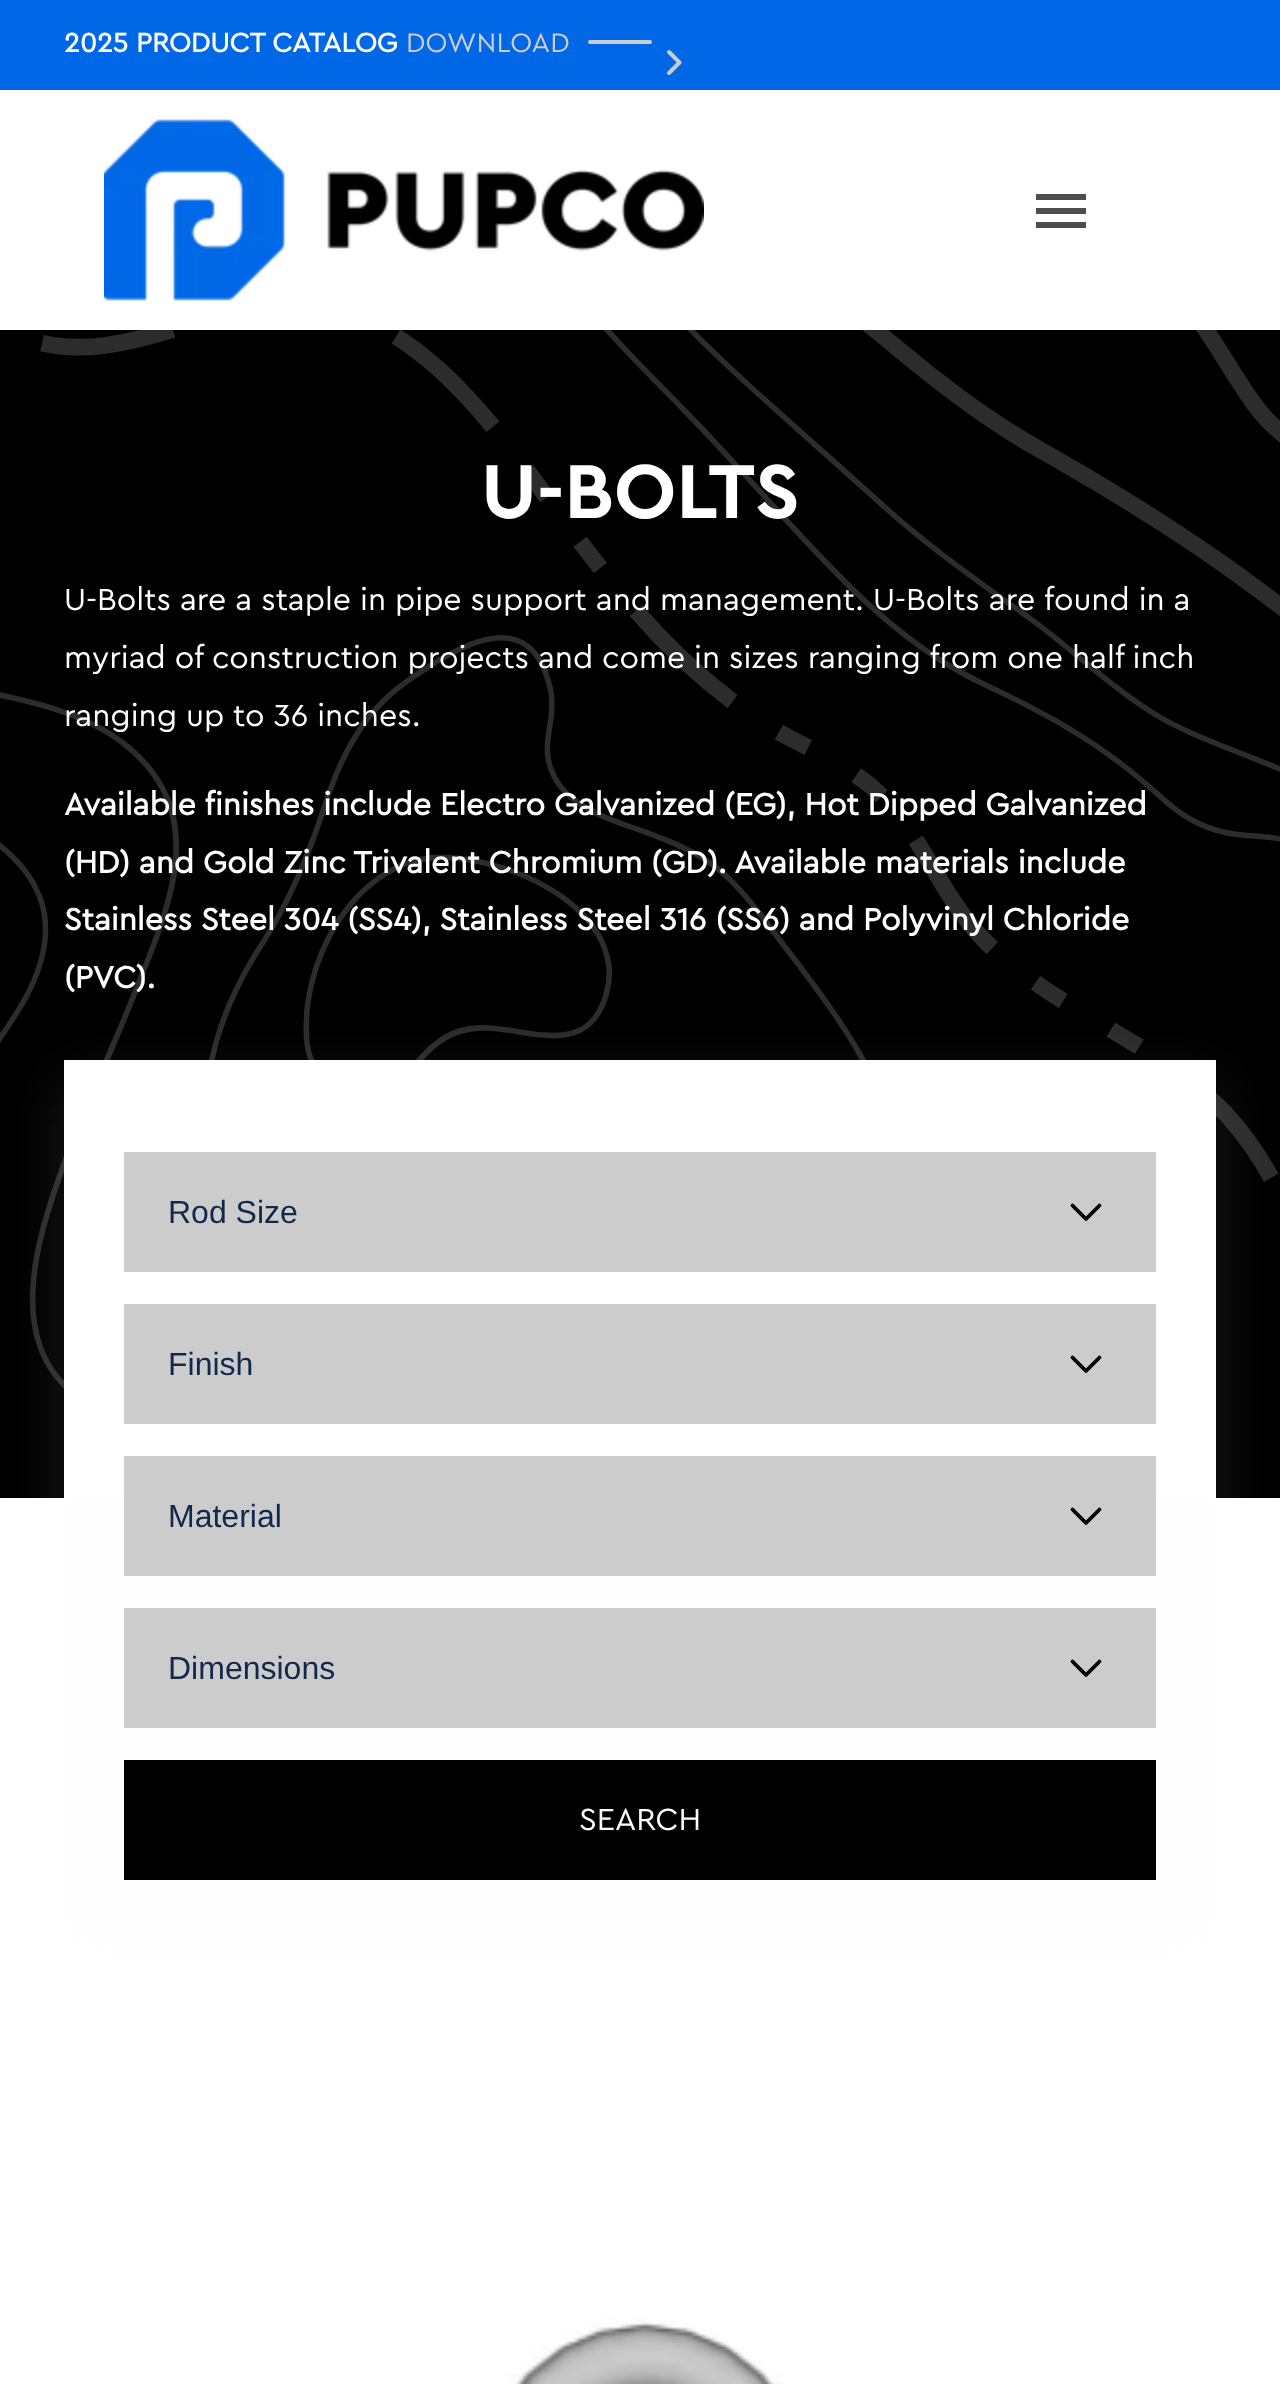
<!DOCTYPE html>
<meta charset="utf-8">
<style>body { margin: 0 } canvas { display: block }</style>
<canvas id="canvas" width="1280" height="2384"></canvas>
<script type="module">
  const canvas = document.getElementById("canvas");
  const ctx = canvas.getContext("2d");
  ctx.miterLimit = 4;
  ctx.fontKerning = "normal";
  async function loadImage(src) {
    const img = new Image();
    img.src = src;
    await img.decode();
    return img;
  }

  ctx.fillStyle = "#ffffff";
  ctx.fillRect(0, 0, 1280, 2384);
  ctx.fillStyle = "#0068e7";
  ctx.fillRect(0, 0, 1280, 90);
  ctx.font = "bold 28px 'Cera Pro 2'";
  ctx.fillStyle = "#ffffff";
  ctx.fillText("2025 PRODUCT CATALOG", 64, 52);
  ctx.font = "28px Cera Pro";
  ctx.fillStyle = "#cccccc";
  ctx.fillText("DOWNLOAD", 406, 52);
  ctx.beginPath();
  ctx.moveTo(590, 42);
  ctx.lineTo(650, 42);
  ctx.strokeStyle = "#cccccc";
  ctx.lineWidth = 4;
  ctx.lineCap = "round";
  ctx.stroke();
  ctx.beginPath();
  ctx.moveTo(669, 52);
  ctx.lineTo(679.5, 62.5);
  ctx.lineTo(669, 73);
  ctx.lineJoin = "round";
  ctx.stroke();
  ctx.drawImage(await loadImage("img1.png"), 104, 119, 600, 182);
  ctx.fillStyle = "#4d4d4d";
  ctx.fillRect(1036, 194, 50, 6);
  ctx.fillRect(1036, 222, 50, 6);
  ctx.fillRect(1036, 208, 50, 6);
  ctx.drawImage(await loadImage("img2.png"), 0, 330, 1280, 1168);
  ctx.font = "bold 80px Cera Pro";
  ctx.fillStyle = "#ffffff";
  ctx.fillText("U-BOLTS", 481, 518);
  ctx.font = "32px Cera Pro";
  ctx.fillText("U-Bolts are a staple in pipe support and management. U-Bolts are found in a", 64, 610);
  ctx.fillText("myriad of construction projects and come in sizes ranging from one half inch", 64, 668);
  ctx.fillText("ranging up to 36 inches.", 64, 726);
  ctx.font = "bold 32px 'Cera Pro 2'";
  ctx.fillText("Available finishes include Electro Galvanized (EG), Hot Dipped Galvanized", 64, 815);
  ctx.fillText("(HD) and Gold Zinc Trivalent Chromium (GD). Available materials include", 64, 873);
  ctx.fillText("Stainless Steel 304 (SS4), Stainless Steel 316 (SS6) and Polyvinyl Chloride", 64, 930);
  ctx.fillStyle = "rgba(242, 243, 243, 0.1)";
  ctx.filter = "blur(30px)";
  ctx.beginPath();
  ctx.rect(64, 1080, 1152, 880);
  ctx.fill();
  ctx.filter = "none";
  ctx.fillStyle = "#ffffff";
  ctx.fillText("(PVC).", 64, 988);
  ctx.fillRect(64, 1060, 1152, 438);
  ctx.fillStyle = "#cccccc";
  ctx.fillRect(124, 1152, 1032, 120);
  ctx.beginPath();
  ctx.moveTo(1099.5, 1205.5);
  ctx.lineTo(1086, 1219);
  ctx.lineTo(1072.5, 1205.5);
  ctx.strokeStyle = "#000000";
  ctx.lineWidth = 3.8;
  ctx.stroke();
  ctx.font = "32px Liberation Sans";
  ctx.fillStyle = "#12284c";
  ctx.fillText("Rod Size", 168, 1223);
  ctx.fillStyle = "#cccccc";
  ctx.fillRect(124, 1304, 1032, 120);
  ctx.beginPath();
  ctx.moveTo(1099.5, 1357.5);
  ctx.lineTo(1086, 1371);
  ctx.lineTo(1072.5, 1357.5);
  ctx.stroke();
  ctx.fillStyle = "#12284c";
  ctx.fillText("Finish", 168, 1375);
  ctx.fillStyle = "#cccccc";
  ctx.fillRect(124, 1456, 1032, 120);
  ctx.beginPath();
  ctx.moveTo(1099.5, 1509.5);
  ctx.lineTo(1086, 1523);
  ctx.lineTo(1072.5, 1509.5);
  ctx.stroke();
  ctx.fillStyle = "#12284c";
  ctx.fillText("Material", 168, 1527);
  ctx.fillStyle = "#cccccc";
  ctx.fillRect(124, 1608, 1032, 120);
  ctx.beginPath();
  ctx.moveTo(1099.5, 1661.5);
  ctx.lineTo(1086, 1675);
  ctx.lineTo(1072.5, 1661.5);
  ctx.stroke();
  ctx.fillStyle = "#12284c";
  ctx.fillText("Dimensions", 168, 1679);
  ctx.fillStyle = "#000000";
  ctx.fillRect(124, 1760, 1032, 120);
  ctx.font = "32px Cera Pro";
  ctx.fillStyle = "#ffffff";
  ctx.fillText("SEARCH", 579, 1830);
  ctx.drawImage(await loadImage("img3.png"), 64, 2180, 1152, 204);
</script>
